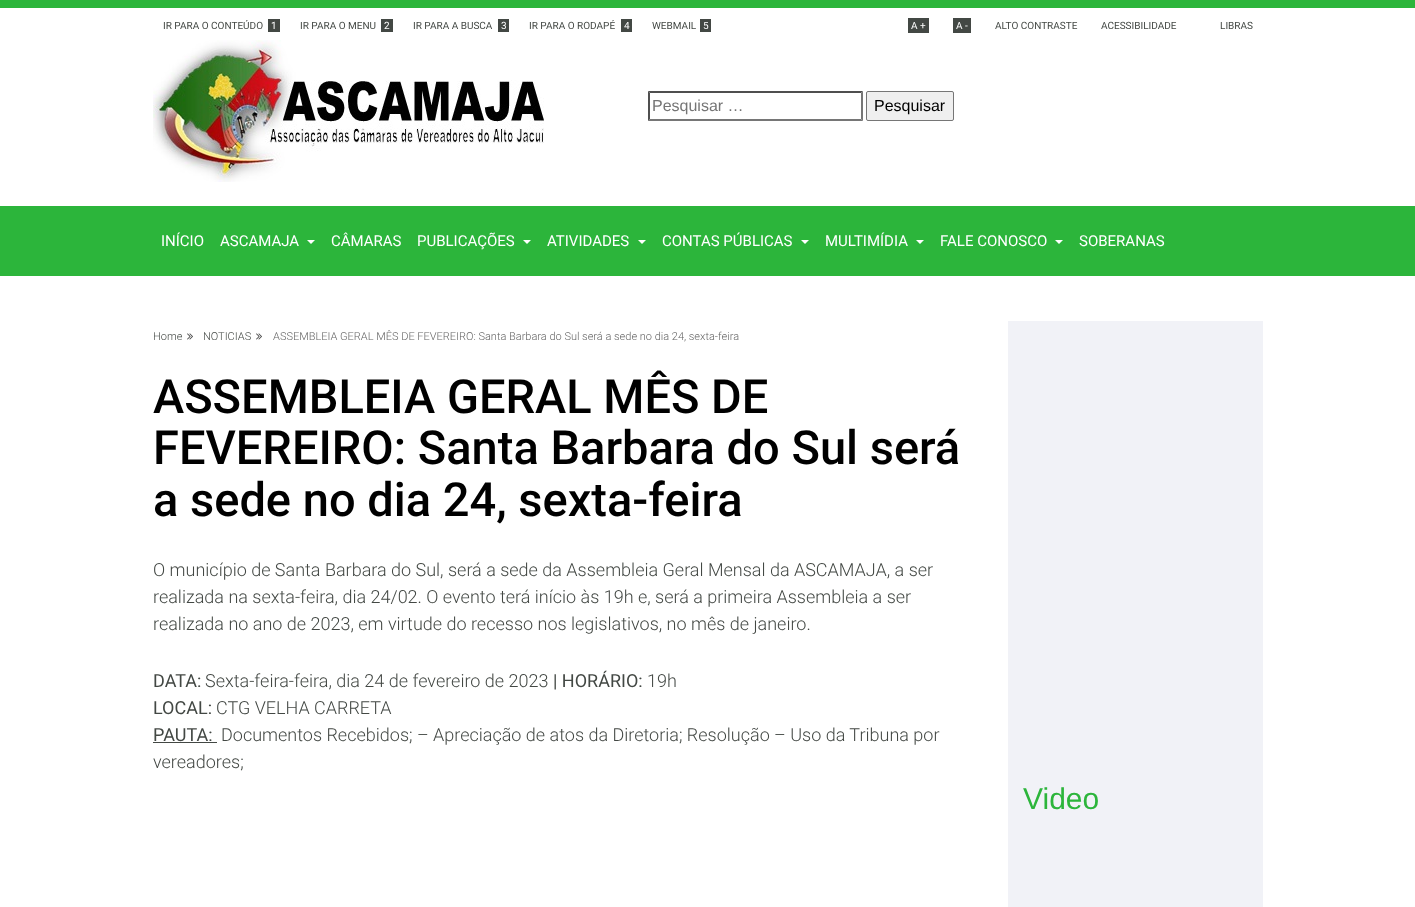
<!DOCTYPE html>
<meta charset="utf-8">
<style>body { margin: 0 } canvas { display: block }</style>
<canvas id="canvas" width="1415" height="907"></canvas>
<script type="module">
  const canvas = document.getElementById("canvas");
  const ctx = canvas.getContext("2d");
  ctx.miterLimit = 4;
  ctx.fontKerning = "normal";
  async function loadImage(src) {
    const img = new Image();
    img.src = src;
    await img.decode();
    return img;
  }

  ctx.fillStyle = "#ffffff";
  ctx.fillRect(0, 0, 1415, 907);
  ctx.fillStyle = "#2cb53b";
  ctx.fillRect(0, 0, 1415, 8);
  ctx.font = "10px Roboto";
  ctx.fillStyle = "#434844";
  ctx.fillText("IR PARA O CONTEÚDO", 163, 29);
  ctx.fillRect(268, 19, 12, 13);
  ctx.fillStyle = "#ffffff";
  ctx.fillText("1", 271, 29);
  ctx.fillStyle = "#434844";
  ctx.fillText("IR PARA O MENU", 300, 29);
  ctx.fillRect(381, 19, 12, 13);
  ctx.fillStyle = "#ffffff";
  ctx.fillText("2", 384, 29);
  ctx.fillStyle = "#434844";
  ctx.fillText("IR PARA A BUSCA", 413, 29);
  ctx.fillRect(498, 19, 11, 13);
  ctx.fillStyle = "#ffffff";
  ctx.fillText("3", 501, 29);
  ctx.fillStyle = "#434844";
  ctx.fillText("IR PARA O RODAPÉ", 529, 29);
  ctx.fillRect(621, 19, 11, 13);
  ctx.fillStyle = "#ffffff";
  ctx.fillText("4", 624, 29);
  ctx.fillStyle = "#434844";
  ctx.fillText("WEBMAIL", 652, 29);
  ctx.fillRect(700, 19, 11, 13);
  ctx.fillStyle = "#ffffff";
  ctx.fillText("5", 703, 29);
  ctx.fillStyle = "#434844";
  ctx.fillRect(908, 18, 21, 15);
  ctx.fillStyle = "#ffffff";
  ctx.fillText("A +", 911, 29);
  ctx.fillStyle = "#434844";
  ctx.fillRect(953, 18, 18, 15);
  ctx.fillStyle = "#ffffff";
  ctx.fillText("A -", 956, 29);
  ctx.fillStyle = "#434844";
  ctx.fillText("ALTO CONTRASTE", 995, 29);
  ctx.fillText("ACESSIBILIDADE", 1101, 29);
  ctx.fillText("LIBRAS", 1220, 29);
  ctx.drawImage(await loadImage("img1.png"), 153, 40, 391, 142);
  ctx.fillStyle = "#4f4f4f";
  ctx.beginPath();
  ctx.moveTo(648, 91);
  ctx.lineTo(863, 91);
  ctx.lineTo(861, 93);
  ctx.lineTo(650, 93);
  ctx.closePath();
  ctx.fill();
  ctx.fillStyle = "#767676";
  ctx.beginPath();
  ctx.moveTo(863, 91);
  ctx.lineTo(863, 121);
  ctx.lineTo(861, 119);
  ctx.lineTo(861, 93);
  ctx.closePath();
  ctx.fill();
  ctx.beginPath();
  ctx.moveTo(863, 121);
  ctx.lineTo(648, 121);
  ctx.lineTo(650, 119);
  ctx.lineTo(861, 119);
  ctx.closePath();
  ctx.fill();
  ctx.fillStyle = "#4f4f4f";
  ctx.beginPath();
  ctx.moveTo(648, 121);
  ctx.lineTo(648, 91);
  ctx.lineTo(650, 93);
  ctx.lineTo(650, 119);
  ctx.closePath();
  ctx.fill();
  ctx.font = "16px Liberation Sans";
  ctx.fillStyle = "#757575";
  ctx.fillText("Pesquisar …", 652, 111);
  ctx.fillStyle = "#efefef";
  ctx.beginPath();
  ctx.roundRect(866.5, 91.5, 87, 29, 1.5);
  ctx.fill();
  ctx.strokeStyle = "#767676";
  ctx.stroke();
  ctx.fillStyle = "#000000";
  ctx.fillText("Pesquisar", 874, 111);
  ctx.fillStyle = "#2cb53b";
  ctx.fillRect(0, 206, 1415, 70);
  ctx.font = "15px Roboto";
  ctx.fillStyle = "#ffffff";
  ctx.fillText("INÍCIO", 161, 246);
  ctx.fillText("ASCAMAJA", 220, 246);
  ctx.beginPath();
  ctx.moveTo(307, 240);
  ctx.lineTo(315, 240);
  ctx.lineTo(311, 244);
  ctx.closePath();
  ctx.fill();
  ctx.fillText("CÂMARAS", 331, 246);
  ctx.fillText("PUBLICAÇÕES", 417, 246);
  ctx.beginPath();
  ctx.moveTo(523, 240);
  ctx.lineTo(531, 240);
  ctx.lineTo(527, 244);
  ctx.closePath();
  ctx.fill();
  ctx.fillText("ATIVIDADES", 547, 246);
  ctx.beginPath();
  ctx.moveTo(638, 240);
  ctx.lineTo(646, 240);
  ctx.lineTo(642, 244);
  ctx.closePath();
  ctx.fill();
  ctx.fillText("CONTAS PÚBLICAS", 662, 246);
  ctx.beginPath();
  ctx.moveTo(801, 240);
  ctx.lineTo(809, 240);
  ctx.lineTo(805, 244);
  ctx.closePath();
  ctx.fill();
  ctx.fillText("MULTIMÍDIA", 825, 246);
  ctx.beginPath();
  ctx.moveTo(916, 240);
  ctx.lineTo(924, 240);
  ctx.lineTo(920, 244);
  ctx.closePath();
  ctx.fill();
  ctx.fillText("FALE CONOSCO", 940, 246);
  ctx.beginPath();
  ctx.moveTo(1055, 240);
  ctx.lineTo(1063, 240);
  ctx.lineTo(1059, 244);
  ctx.closePath();
  ctx.fill();
  ctx.fillText("SOBERANAS", 1079, 246);
  ctx.font = "300 11px Roboto";
  ctx.fillStyle = "#434844";
  ctx.fillText("Home", 153, 340);
  ctx.drawImage(await loadImage("img2.png"), 187, 333, 6, 7);
  ctx.fillText("NOTICIAS", 203, 340);
  ctx.drawImage(await loadImage("img2.png"), 256, 333, 6, 7);
  ctx.fillStyle = "#666666";
  ctx.fillText("ASSEMBLEIA GERAL MÊS DE FEVEREIRO: Santa Barbara do Sul será a sede no dia 24, sexta-feira", 273, 340);
  ctx.font = "500 47px Roboto";
  ctx.fillStyle = "#000000";
  ctx.fillText("ASSEMBLEIA GERAL MÊS DE", 153, 413);
  ctx.fillText("FEVEREIRO: Santa Barbara do Sul será", 153, 464);
  ctx.fillText("a sede no dia 24, sexta-feira", 153, 516);
  ctx.font = "300 18px Roboto";
  ctx.fillStyle = "#434844";
  ctx.fillText("O município de Santa Barbara do Sul, será a sede da Assembleia Geral Mensal da ASCAMAJA, a ser", 153, 576);
  ctx.fillText("realizada na sexta-feira, dia 24/02. O evento terá início às 19h e, será a primeira Assembleia a ser", 153, 603);
  ctx.fillText("realizada no ano de 2023, em virtude do recesso nos legislativos, no mês de janeiro.", 153, 630);
  ctx.font = "18px Roboto";
  ctx.fillText("DATA:", 153, 687);
  ctx.font = "300 18px Roboto";
  ctx.fillText("Sexta-feira-feira, dia 24 de fevereiro de 2023", 205, 687);
  ctx.font = "18px Roboto";
  ctx.fillText("| HORÁRIO:", 553, 687);
  ctx.font = "300 18px Roboto";
  ctx.fillText("19h", 647, 687);
  ctx.font = "18px Roboto";
  ctx.fillText("LOCAL:", 153, 714);
  ctx.font = "300 18px Roboto";
  ctx.fillText("CTG VELHA CARRETA", 216, 714);
  ctx.font = "18px Roboto";
  ctx.fillText("PAUTA:", 153, 741);
  ctx.fillRect(153, 742, 64, 1);
  ctx.font = "300 18px Roboto";
  ctx.fillText("Documentos Recebidos; – Apreciação de atos da Diretoria; Resolução – Uso da Tribuna por", 221, 741);
  ctx.fillText("vereadores;", 153, 768);
  ctx.fillStyle = "#f1f2f7";
  ctx.fillRect(1008, 321, 255, 586);
  ctx.font = "30px Liberation Sans";
  ctx.fillStyle = "#2cb53b";
  ctx.fillText("Video", 1023, 809);
</script>
